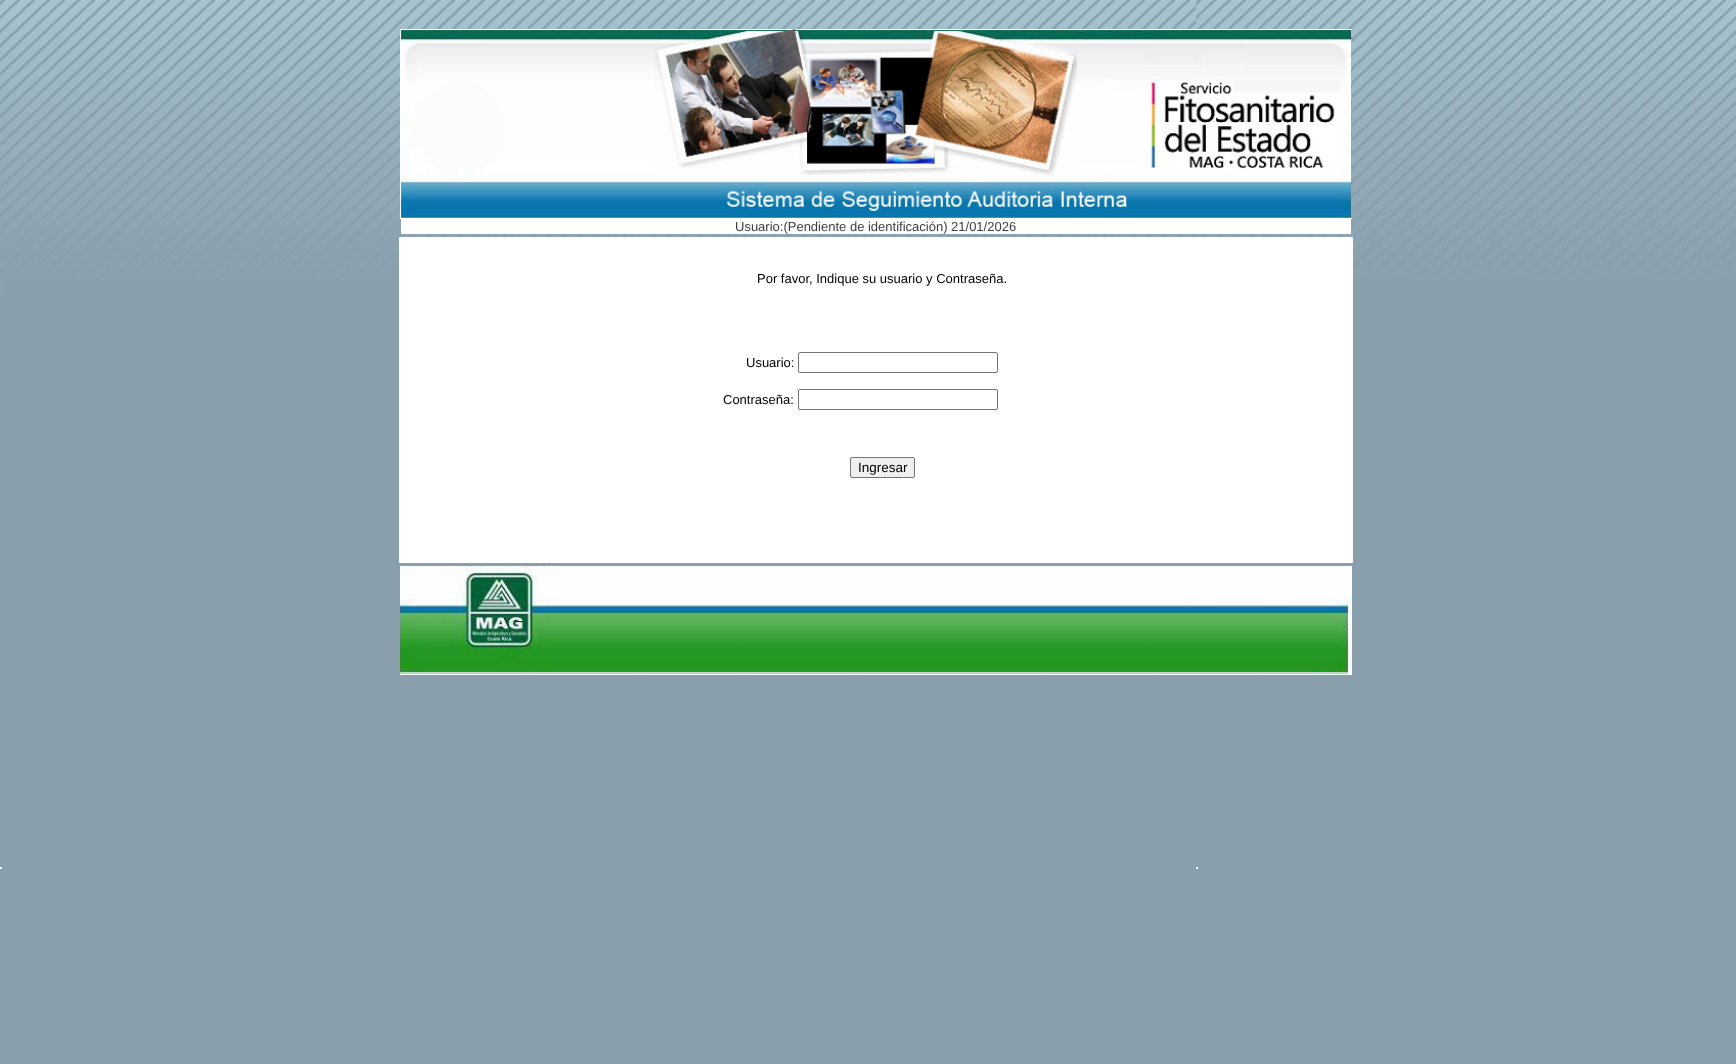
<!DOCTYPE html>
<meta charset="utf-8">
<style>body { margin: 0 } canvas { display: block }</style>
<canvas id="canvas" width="1736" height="1064"></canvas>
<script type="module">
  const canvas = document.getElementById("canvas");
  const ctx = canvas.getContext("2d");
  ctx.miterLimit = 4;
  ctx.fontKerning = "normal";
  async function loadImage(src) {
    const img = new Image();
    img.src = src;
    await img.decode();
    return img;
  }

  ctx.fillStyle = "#ffffff";
  ctx.fillRect(0, 0, 1736, 1064);
  ctx.drawImage(await loadImage("img1.png"), 0, 0, 1736, 1064);
  ctx.drawImage(await loadImage("img2.png"), 400, 29, 952, 190);
  ctx.fillRect(401, 219, 950, 15);
  ctx.font = "13px Liberation Sans";
  ctx.fillStyle = "#404040";
  ctx.fillText("Usuario:(Pendiente de identificación) 21/01/2026", 735, 231);
  ctx.fillStyle = "#ffffff";
  ctx.fillRect(399, 237, 954, 326);
  ctx.fillStyle = "#000000";
  ctx.fillText("Por favor, Indique su usuario y Contraseña.", 757, 283);
  ctx.fillText("Usuario:", 746, 367);
  ctx.beginPath();
  ctx.roundRect(798.5, 352.5, 199, 20, 1.5);
  ctx.strokeStyle = "#767676";
  ctx.stroke();
  ctx.fillText("Contraseña:", 723, 404);
  ctx.beginPath();
  ctx.roundRect(798.5, 389.5, 199, 20, 1.5);
  ctx.stroke();
  ctx.fillStyle = "#efefef";
  ctx.beginPath();
  ctx.roundRect(850.5, 457.5, 64, 20, 1.5);
  ctx.fill();
  ctx.stroke();
  ctx.font = "13.5px Liberation Sans";
  ctx.fillStyle = "#000000";
  ctx.fillText("Ingresar", 858, 472);
  ctx.drawImage(await loadImage("img3.png"), 400, 566, 952, 109);
</script>
